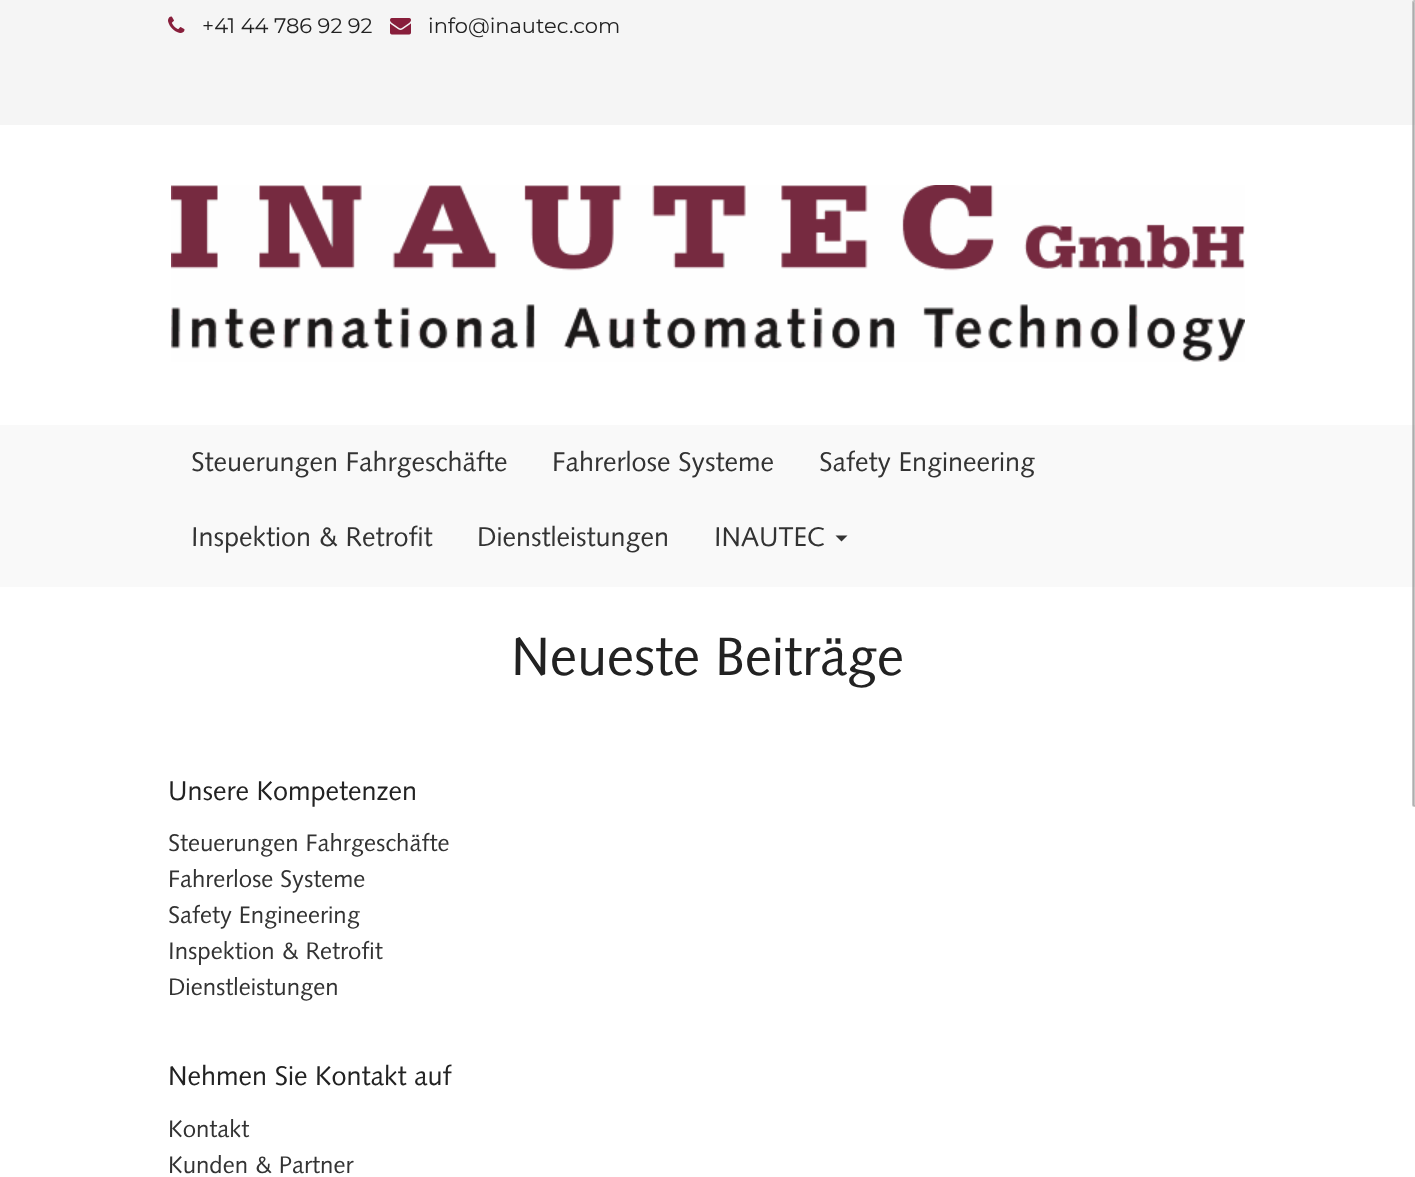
<!DOCTYPE html>
<meta charset="utf-8">
<style>body { margin: 0 } canvas { display: block }</style>
<canvas id="canvas" width="1415" height="1177"></canvas>
<script type="module">
  const canvas = document.getElementById("canvas");
  const ctx = canvas.getContext("2d");
  ctx.miterLimit = 4;
  ctx.fontKerning = "normal";
  async function loadImage(src) {
    const img = new Image();
    img.src = src;
    await img.decode();
    return img;
  }

  ctx.fillStyle = "#ffffff";
  ctx.fillRect(0, 0, 1415, 1177);
  ctx.fillStyle = "#f5f5f5";
  ctx.fillRect(0, 0, 1415, 125);
  ctx.drawImage(await loadImage("img1.png"), 168, 16, 17, 17);
  ctx.font = "21px Montserrat";
  ctx.fillStyle = "#222222";
  ctx.fillText("+41 44 786 92 92", 202, 33);
  ctx.drawImage(await loadImage("img2.png"), 390, 18, 21, 17);
  ctx.fillText("info@inautec.com", 428, 33);
  ctx.drawImage(await loadImage("img3.png"), 171, 185, 1074, 177);
  ctx.fillStyle = "#f9f9f9";
  ctx.fillRect(0, 425, 1415, 162);
  ctx.font = "27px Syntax";
  ctx.fillStyle = "#333333";
  ctx.fillText("Steuerungen Fahrgeschäfte", 191, 471);
  ctx.fillText("Fahrerlose Systeme", 552, 471);
  ctx.fillText("Safety Engineering", 819, 471);
  ctx.fillText("Inspektion & Retrofit", 191, 546);
  ctx.fillText("Dienstleistungen", 477, 546);
  ctx.fillText("INAUTEC", 714, 546);
  ctx.beginPath();
  ctx.moveTo(835.5, 535.5);
  ctx.lineTo(847.5, 535.5);
  ctx.lineTo(841.5, 541.5);
  ctx.closePath();
  ctx.fill();
  ctx.font = "54px Syntax";
  ctx.fillStyle = "#222222";
  ctx.fillText("Neueste Beiträge", 511, 675);
  ctx.font = "27px Syntax";
  ctx.fillText("Unsere Kompetenzen", 168, 800);
  ctx.font = "24px Syntax";
  ctx.fillStyle = "#333333";
  ctx.fillText("Steuerungen Fahrgeschäfte", 168, 851);
  ctx.fillText("Fahrerlose Systeme", 168, 887);
  ctx.fillText("Safety Engineering", 168, 923);
  ctx.fillText("Inspektion & Retrofit", 168, 959);
  ctx.fillText("Dienstleistungen", 168, 995);
  ctx.font = "27px Syntax";
  ctx.fillStyle = "#222222";
  ctx.fillText("Nehmen Sie Kontakt auf", 168, 1085);
  ctx.font = "24px Syntax";
  ctx.fillStyle = "#333333";
  ctx.fillText("Kontakt", 168, 1137);
  ctx.fillText("Kunden & Partner", 168, 1173);
  ctx.fillStyle = "rgba(153, 153, 153, 0.55)";
  ctx.beginPath();
  ctx.roundRect(1413, 2, 2, 804, 1);
  ctx.fill();
  ctx.beginPath();
  ctx.roundRect(1413, 1, 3, 805, 1.5);
  ctx.strokeStyle = "rgba(153, 153, 153, 0.55)";
  ctx.lineWidth = 2;
  ctx.stroke();
</script>
